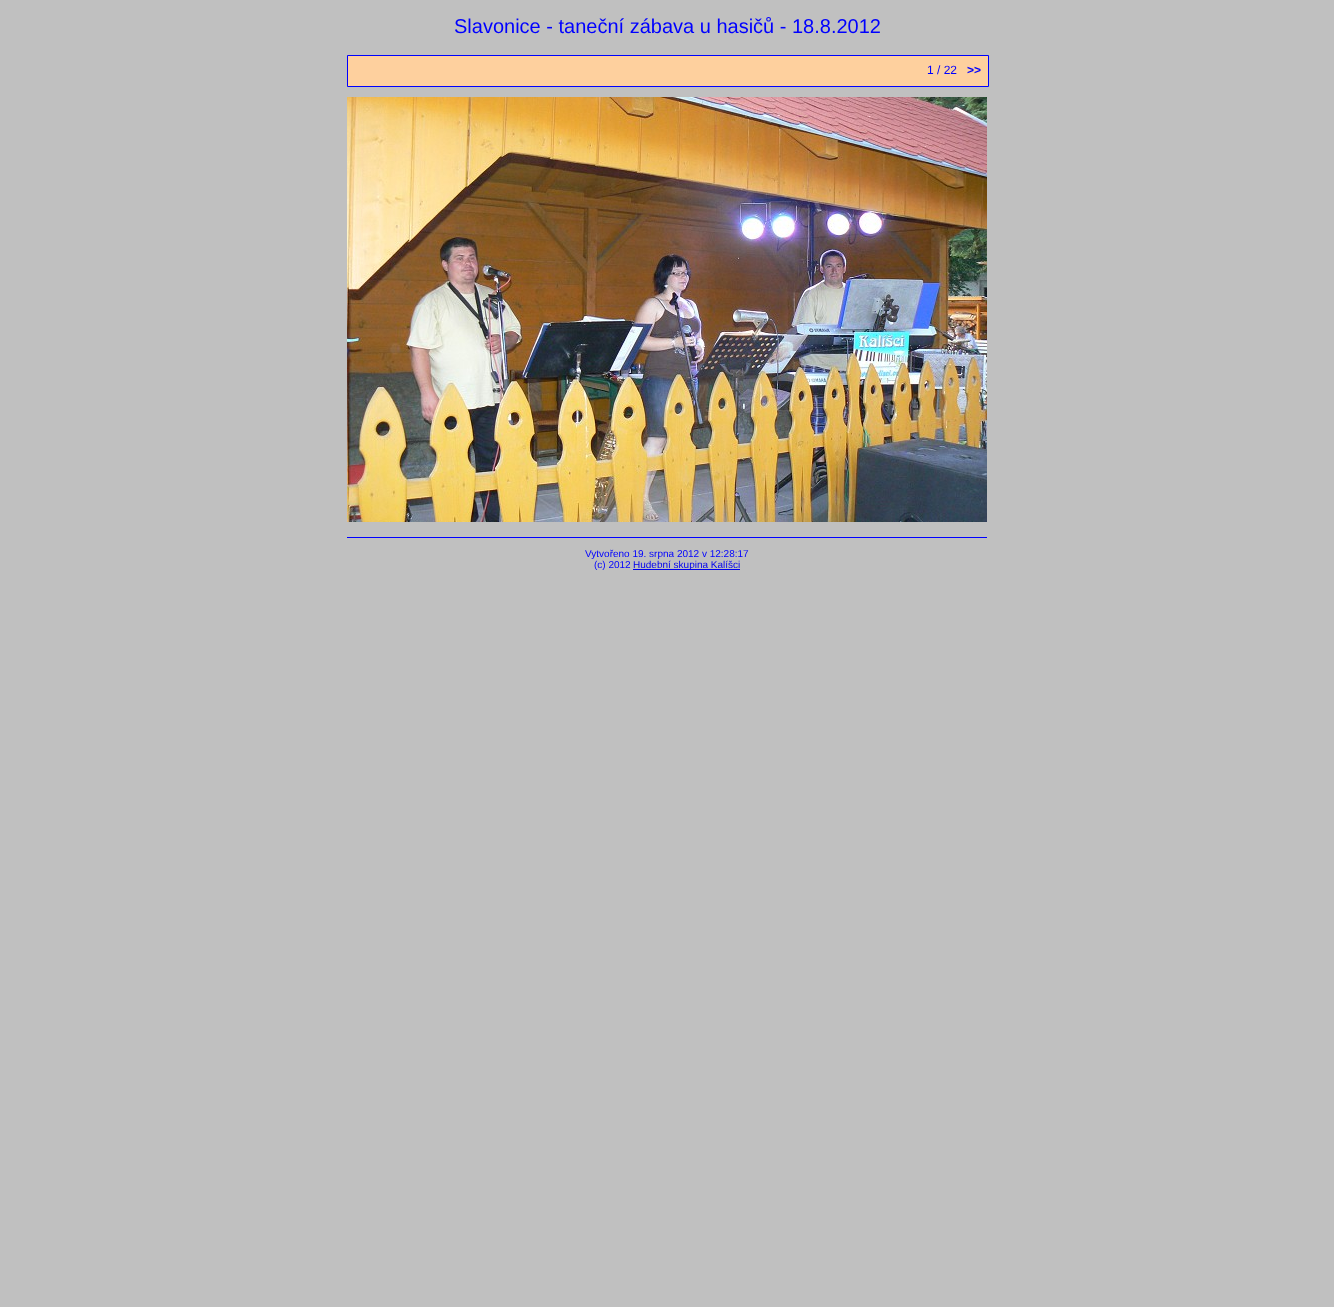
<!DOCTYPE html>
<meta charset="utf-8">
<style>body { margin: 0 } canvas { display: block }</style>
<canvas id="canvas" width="1334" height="1307"></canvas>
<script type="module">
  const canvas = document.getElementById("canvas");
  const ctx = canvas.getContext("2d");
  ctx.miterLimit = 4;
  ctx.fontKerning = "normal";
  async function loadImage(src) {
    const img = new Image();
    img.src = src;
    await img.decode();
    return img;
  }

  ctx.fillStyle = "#c0c0c0";
  ctx.fillRect(0, 0, 1334, 1307);
  ctx.font = "20px Liberation Sans";
  ctx.fillStyle = "#0000ff";
  ctx.fillText("Slavonice - taneční zábava u hasičů - 18.8.2012", 454, 33);
  ctx.fillStyle = "#fed09e";
  ctx.beginPath();
  ctx.rect(347.5, 55.5, 641, 31);
  ctx.fill();
  ctx.strokeStyle = "#0000ff";
  ctx.stroke();
  ctx.font = "12px Liberation Sans";
  ctx.fillStyle = "#0000ff";
  ctx.fillText("1 / 22", 927, 74);
  ctx.font = "bold 12px Liberation Sans";
  ctx.fillText(">>", 967, 74);
  ctx.drawImage(await loadImage("img1.png"), 347, 97, 640, 425);
  ctx.fillRect(347, 537, 640, 1);
  ctx.font = "10px Liberation Sans";
  ctx.fillText("Vytvořeno 19. srpna 2012 v 12:28:17", 585, 557);
  ctx.fillText("(c) 2012", 594, 568);
  ctx.fillStyle = "#0000ee";
  ctx.fillRect(633, 569, 107, 1);
  ctx.fillText("Hudební skupina Kalíšci", 633, 568);
</script>
